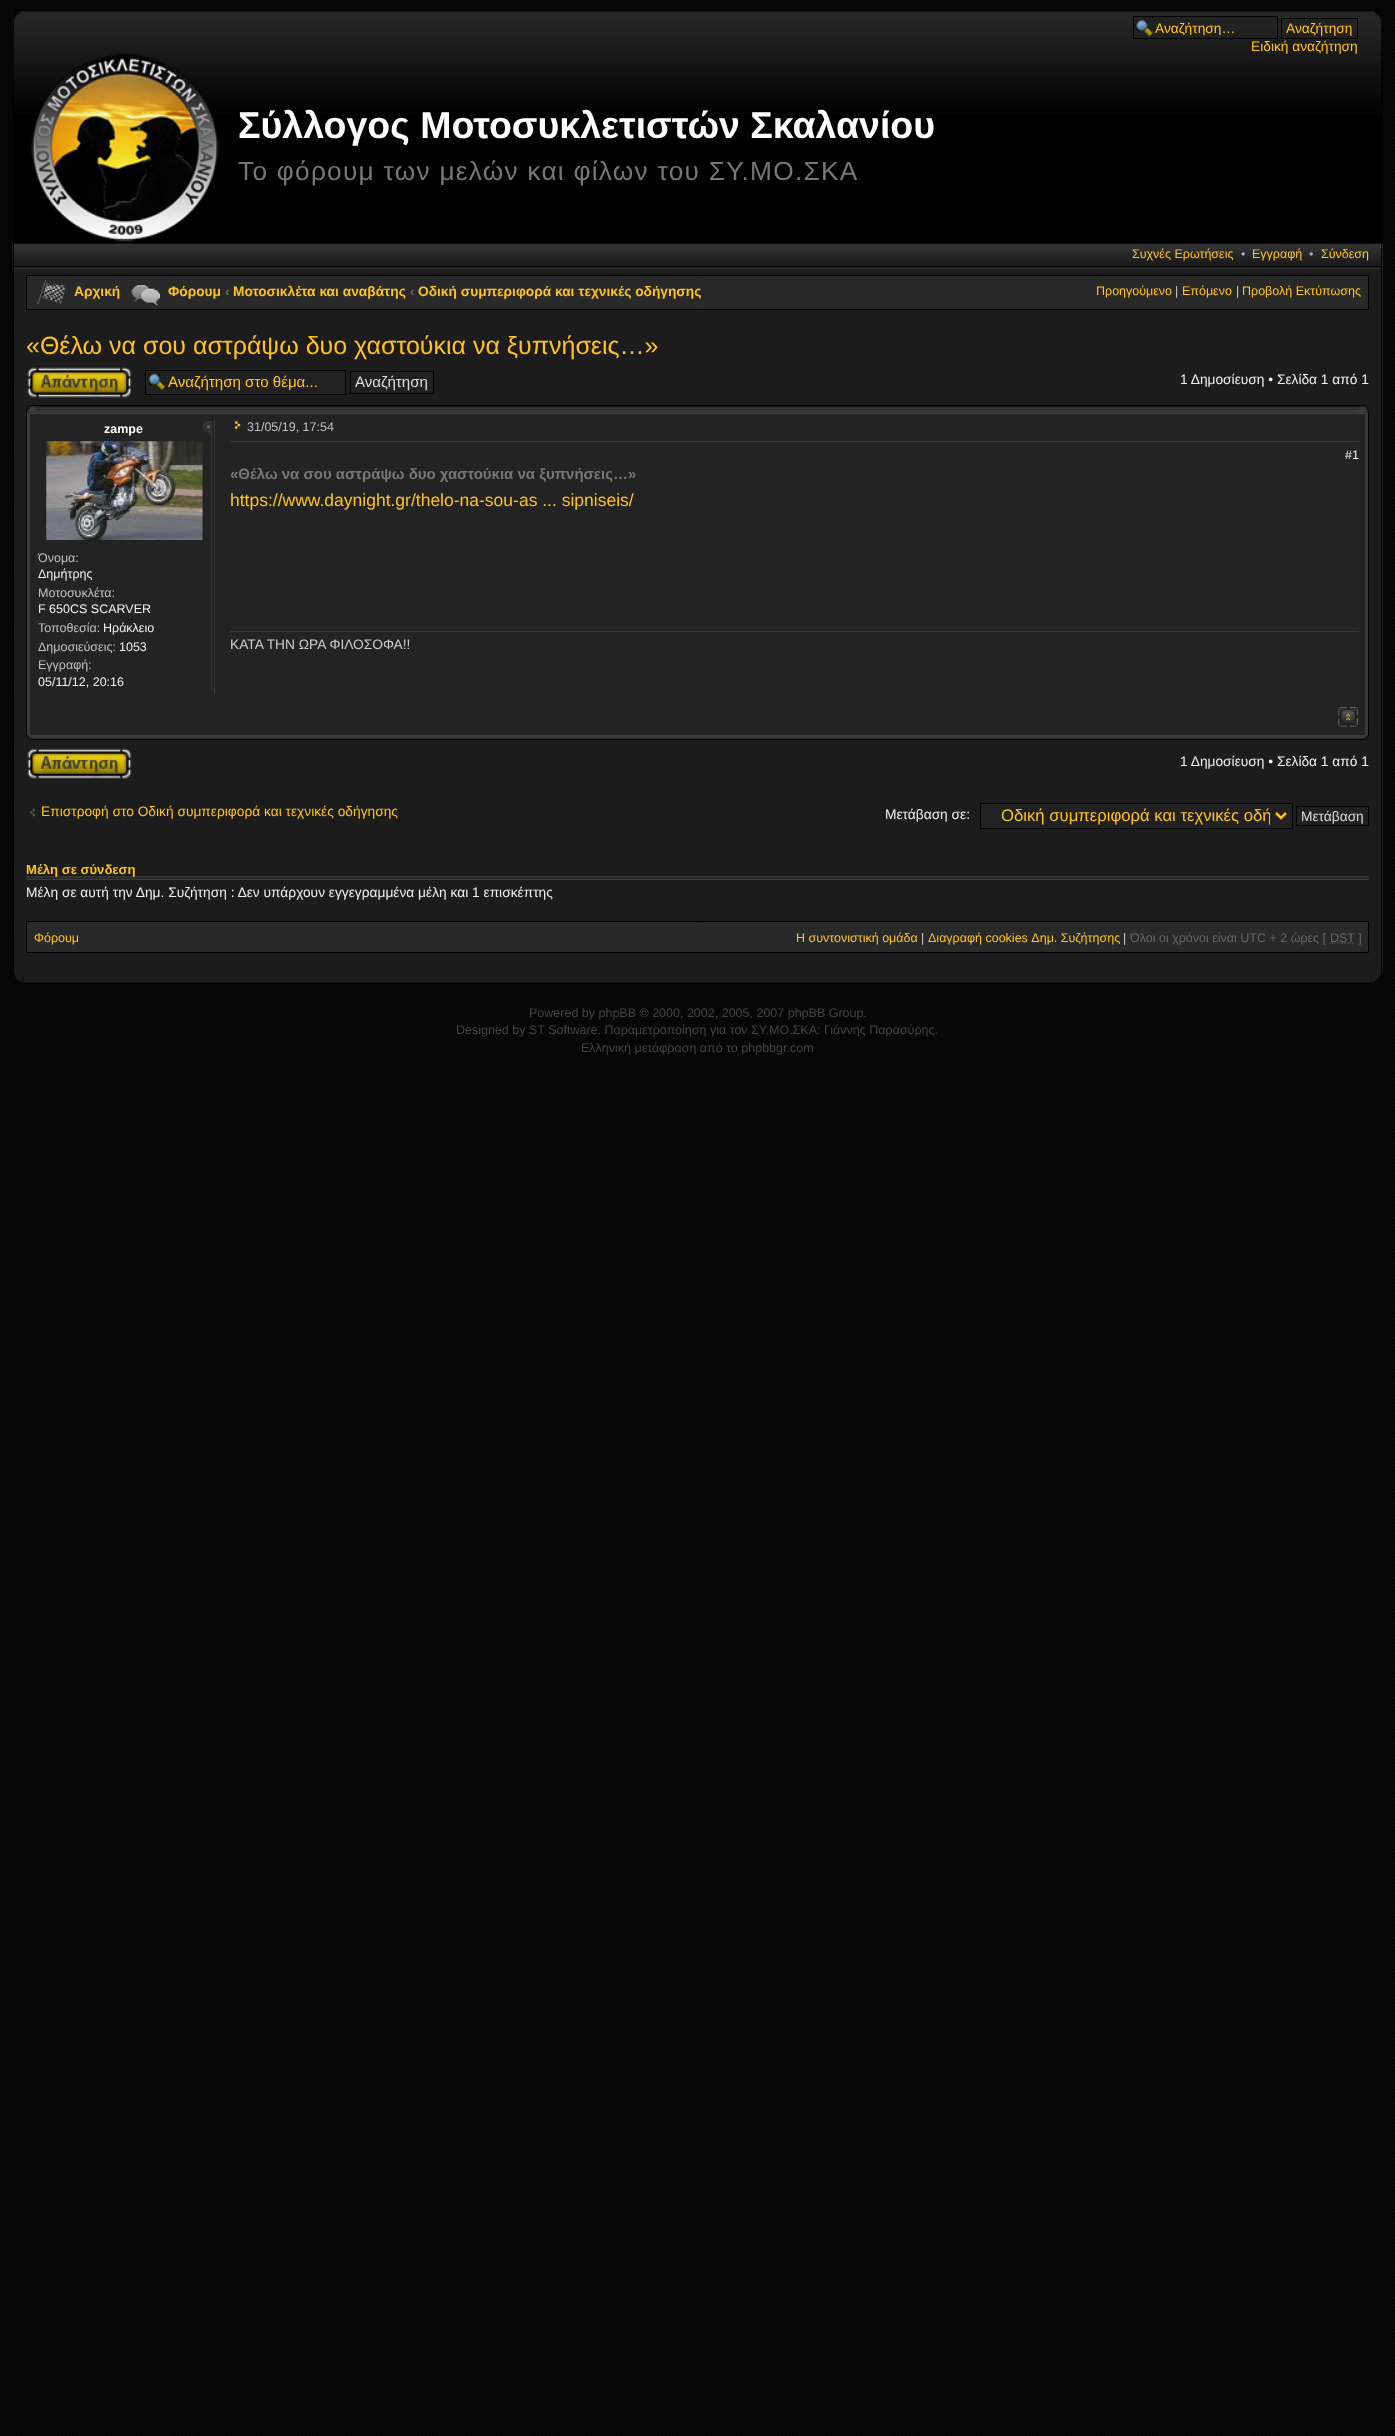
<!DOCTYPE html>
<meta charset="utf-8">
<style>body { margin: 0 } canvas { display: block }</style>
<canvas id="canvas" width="1395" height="2436"></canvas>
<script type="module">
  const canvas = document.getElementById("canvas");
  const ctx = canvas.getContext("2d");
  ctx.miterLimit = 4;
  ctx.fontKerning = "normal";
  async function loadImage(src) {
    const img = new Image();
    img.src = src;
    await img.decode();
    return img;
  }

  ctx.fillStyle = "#ffffff";
  ctx.fillRect(0, 0, 1395, 2436);
  ctx.drawImage(await loadImage("img1.png"), 0, 1063, 1395, 1373);
  ctx.drawImage(await loadImage("img2.png"), 0, 0, 1395, 1063);
  ctx.fillStyle = "#000000";
  ctx.fillRect(13, 10, 1370, 234);
  ctx.drawImage(await loadImage("img3.png"), 12, 11, 1371, 103);
  ctx.drawImage(await loadImage("img4.png"), 12, 11, 11, 106);
  ctx.drawImage(await loadImage("img5.png"), 1372, 11, 11, 93);
  ctx.fillStyle = "#212121";
  ctx.fillRect(1134, 17, 143, 6);
  ctx.drawImage(await loadImage("img6.png"), 1135, 19, 18, 18);
  ctx.strokeStyle = "#000000";
  ctx.strokeRect(1133.5, 16.5, 144, 22);
  ctx.save();
  ctx.beginPath();
  ctx.rect(1155, 20, 119, 15);
  ctx.clip();
  ctx.font = "13.75px Liberation Sans";
  ctx.fillStyle = "#ffc220";
  ctx.fillText("Αναζήτηση…", 1155, 33);
  ctx.restore();
  ctx.fillRect(1282, 19, 75, 4);
  ctx.strokeRect(1281.5, 18.5, 76, 20);
  ctx.font = "13.75px Liberation Sans";
  ctx.fillStyle = "#ffc220";
  ctx.fillText("Αναζήτηση", 1286, 33);
  ctx.fillText("Ειδική αναζήτηση", 1251, 51);
  ctx.drawImage(await loadImage("img7.png"), 31, 53, 188, 189);
  ctx.font = "bold 37.5px Liberation Sans";
  ctx.fillStyle = "#ffffff";
  ctx.fillText("Σύλλογος Μοτοσυκλετιστών Σκαλανίου", 238, 138);
  ctx.letterSpacing = "1.25px";
  ctx.font = "26.25px Liberation Sans";
  ctx.fillStyle = "#777777";
  ctx.fillText("Το φόρουμ των μελών και φίλων του ΣΥ.ΜΟ.ΣΚΑ", 238, 180);
  ctx.fillStyle = "#1c1c1c";
  ctx.fillRect(14, 244, 1369, 729);
  ctx.drawImage(await loadImage("img8.png"), 12, 243, 1371, 26);
  ctx.fillStyle = "#000000";
  ctx.fillRect(1381, 244, 1, 729);
  ctx.fillRect(13, 244, 1, 729);
  ctx.letterSpacing = "0px";
  ctx.font = "12.5px Liberation Sans";
  ctx.fillStyle = "#ffc220";
  ctx.fillText("Συχνές Ερωτήσεις", 1132, 258);
  ctx.fillStyle = "#b0b0b0";
  ctx.fillText("•", 1241, 258);
  ctx.fillStyle = "#ffc220";
  ctx.fillText("Εγγραφή", 1252, 258);
  ctx.fillStyle = "#b0b0b0";
  ctx.fillText("•", 1309, 258);
  ctx.fillStyle = "#ffc220";
  ctx.fillText("Σύνδεση", 1321, 258);
  ctx.fillStyle = "#292929";
  ctx.beginPath();
  ctx.rect(26.5, 275.5, 1342, 34);
  ctx.fill();
  ctx.stroke();
  ctx.drawImage(await loadImage("img9.png"), 37, 280, 28, 24);
  ctx.font = "bold 13.75px Liberation Sans";
  ctx.fillStyle = "#ffc220";
  ctx.fillText("Αρχική", 74, 296);
  ctx.drawImage(await loadImage("img10.png"), 131, 285, 29, 21);
  ctx.fillText("Φόρουμ", 168, 296);
  ctx.fillStyle = "#666666";
  ctx.fillText("‹", 225, 296);
  ctx.fillStyle = "#ffc220";
  ctx.fillText("Μοτοσικλέτα και αναβάτης", 233, 296);
  ctx.fillStyle = "#666666";
  ctx.fillText("‹", 410, 296);
  ctx.fillStyle = "#ffc220";
  ctx.fillText("Οδική συμπεριφορά και τεχνικές οδήγησης", 418, 296);
  ctx.font = "12.5px Liberation Sans";
  ctx.fillText("Προηγούμενο", 1096, 295);
  ctx.fillStyle = "#cccccc";
  ctx.fillText("|", 1175, 295);
  ctx.fillStyle = "#ffc220";
  ctx.fillText("Επόμενο", 1182, 295);
  ctx.fillStyle = "#cccccc";
  ctx.fillText("|", 1236, 295);
  ctx.fillStyle = "#ffc220";
  ctx.fillText("Προβολή Εκτύπωσης", 1242, 295);
  ctx.font = "25px Liberation Sans";
  ctx.fillText("«Θέλω να σου αστράψω δυο χαστούκια να ξυπνήσεις…»", 26, 354);
  ctx.drawImage(await loadImage("img11.png"), 27, 367, 105, 31);
  ctx.fillStyle = "#212121";
  ctx.fillRect(146, 371, 199, 23);
  ctx.drawImage(await loadImage("img12.png"), 147, 373, 19, 17);
  ctx.strokeRect(145.5, 370.5, 200, 24);
  ctx.font = "15.1px Liberation Sans";
  ctx.fillStyle = "#ffc220";
  ctx.fillText("Αναζήτηση στο θέμα...", 168, 387);
  ctx.fillStyle = "#212121";
  ctx.beginPath();
  ctx.rect(350.5, 371.5, 83, 22);
  ctx.fill();
  ctx.stroke();
  ctx.fillStyle = "#dddddd";
  ctx.fillText("Αναζήτηση", 355, 387);
  ctx.font = "13.75px Liberation Sans";
  ctx.fillStyle = "#f0f0f0";
  ctx.fillText("1 Δημοσίευση • Σελίδα 1 από 1", 1180, 384);
  ctx.drawImage(await loadImage("img13.png"), 26, 405, 1343, 8);
  ctx.drawImage(await loadImage("img14.png"), 26, 405, 15, 8);
  ctx.drawImage(await loadImage("img15.png"), 1354, 405, 15, 8);
  ctx.fillStyle = "#3b3b3b";
  ctx.fillRect(27, 413, 1341, 322);
  ctx.fillStyle = "#000000";
  ctx.fillRect(1368, 413, 1, 322);
  ctx.fillRect(26, 413, 1, 322);
  ctx.fillStyle = "#232323";
  ctx.fillRect(30, 414, 1335, 320);
  ctx.fillStyle = "#404040";
  ctx.fillRect(30, 413, 1335, 1);
  ctx.fillStyle = "#222222";
  ctx.fillRect(30, 734, 1335, 1);
  ctx.fillStyle = "#393939";
  ctx.fillRect(214, 420, 1, 274);
  ctx.fillStyle = "#333333";
  ctx.fillRect(211, 421, 1, 269);
  ctx.font = "bold 12.5px Liberation Sans";
  ctx.fillStyle = "#ffffff";
  ctx.fillText("zampe", 104, 433);
  ctx.drawImage(await loadImage("img16.png"), 202, 421, 9, 12);
  ctx.drawImage(await loadImage("img17.png"), 46, 441, 157, 99);
  ctx.font = "12.5px Liberation Sans";
  ctx.fillStyle = "#c0c0c0";
  ctx.fillText("Όνομα:", 38, 562);
  ctx.fillStyle = "#f0f0f0";
  ctx.fillText("Δημήτρης", 38, 578);
  ctx.fillStyle = "#c0c0c0";
  ctx.fillText("Μοτοσυκλέτα:", 38, 597);
  ctx.fillStyle = "#f0f0f0";
  ctx.fillText("F 650CS SCARVER", 38, 613);
  ctx.fillStyle = "#c0c0c0";
  ctx.fillText("Τοποθεσία:", 38, 632);
  ctx.fillStyle = "#f0f0f0";
  ctx.fillText("Ηράκλειο", 103, 632);
  ctx.fillStyle = "#c0c0c0";
  ctx.fillText("Δημοσιεύσεις:", 38, 651);
  ctx.fillStyle = "#f0f0f0";
  ctx.fillText("1053", 119, 651);
  ctx.fillStyle = "#c0c0c0";
  ctx.fillText("Εγγραφή:", 38, 669);
  ctx.fillStyle = "#f0f0f0";
  ctx.fillText("05/11/12, 20:16", 38, 686);
  ctx.fillStyle = "#383838";
  ctx.fillRect(230, 441, 1129, 1);
  ctx.drawImage(await loadImage("img18.png"), 234, 421, 7, 8);
  ctx.fillStyle = "#c0c0c0";
  ctx.fillText("31/05/19, 17:54", 247, 431);
  ctx.fillStyle = "#f0f0f0";
  ctx.fillText("#1", 1345, 459);
  ctx.font = "bold 15px Liberation Sans";
  ctx.fillStyle = "#777777";
  ctx.fillText("«Θέλω να σου αστράψω δυο χαστούκια να ξυπνήσεις…»", 230, 479);
  ctx.font = "17.5px Liberation Sans";
  ctx.fillStyle = "#ffc220";
  ctx.fillText("https://www.daynight.gr/thelo-na-sou-as ... sipniseis/", 230, 506);
  ctx.fillStyle = "#383838";
  ctx.fillRect(230, 631, 1129, 1);
  ctx.font = "13.75px Liberation Sans";
  ctx.fillStyle = "#cccccc";
  ctx.fillText("KΑΤΑ ΤΗΝ ΩΡΑ ΦΙΛΟΣΟΦΑ!!", 230, 649);
  ctx.drawImage(await loadImage("img19.png"), 1338, 707, 20, 20);
  ctx.drawImage(await loadImage("img20.png"), 1338, 707, 20, 20);
  ctx.drawImage(await loadImage("img21.png"), 26, 735, 1343, 5);
  ctx.drawImage(await loadImage("img22.png"), 26, 735, 6, 5);
  ctx.drawImage(await loadImage("img23.png"), 1363, 735, 6, 5);
  ctx.drawImage(await loadImage("img24.png"), 27, 748, 105, 31);
  ctx.fillStyle = "#f0f0f0";
  ctx.fillText("1 Δημοσίευση • Σελίδα 1 από 1", 1180, 766);
  ctx.drawImage(await loadImage("img25.png"), 30, 808, 5, 9);
  ctx.fillStyle = "#ffc220";
  ctx.fillText("Επιστροφή στο Οδική συμπεριφορά και τεχνικές οδήγησης", 41, 816);
  ctx.fillStyle = "#f0f0f0";
  ctx.fillText("Μετάβαση σε:", 885, 819);
  ctx.fillStyle = "#212121";
  ctx.beginPath();
  ctx.rect(980.5, 803.5, 312, 25);
  ctx.fill();
  ctx.stroke();
  ctx.beginPath();
  ctx.moveTo(1276, 813);
  ctx.lineTo(1281, 818);
  ctx.lineTo(1286, 813);
  ctx.strokeStyle = "#ffc220";
  ctx.lineWidth = 2.5;
  ctx.stroke();
  ctx.save();
  ctx.beginPath();
  ctx.rect(988, 805, 282, 21);
  ctx.clip();
  ctx.font = "16.7px Liberation Sans";
  ctx.fillStyle = "#ffc220";
  ctx.fillText("Οδική συμπεριφορά και τεχνικές οδή", 1001, 821);
  ctx.restore();
  ctx.beginPath();
  ctx.rect(1296.5, 806.5, 72, 19);
  ctx.fill();
  ctx.strokeStyle = "#000000";
  ctx.lineWidth = 1;
  ctx.stroke();
  ctx.fillStyle = "#dddddd";
  ctx.fillText("Μετάβαση", 1301, 821);
  ctx.drawImage(await loadImage("img26.png"), 26, 876, 1343, 4);
  ctx.font = "bold 13.1px Liberation Sans";
  ctx.fillStyle = "#ffc220";
  ctx.fillText("Μέλη σε σύνδεση", 26, 874);
  ctx.font = "13.75px Liberation Sans";
  ctx.fillStyle = "#f0f0f0";
  ctx.fillText("Μέλη σε αυτή την Δημ. Συζήτηση : Δεν υπάρχουν εγγεγραμμένα μέλη και 1 επισκέπτης", 26, 897);
  ctx.fillStyle = "#292929";
  ctx.beginPath();
  ctx.rect(26.5, 921.5, 1342, 31);
  ctx.fill();
  ctx.stroke();
  ctx.font = "12.5px Liberation Sans";
  ctx.fillStyle = "#ffc220";
  ctx.fillText("Φόρουμ", 34, 942);
  ctx.fillText("Η συντονιστική ομάδα", 796, 942);
  ctx.fillStyle = "#cccccc";
  ctx.fillText("|", 921, 942);
  ctx.fillStyle = "#ffc220";
  ctx.fillText("Διαγραφή cookies Δημ. Συζήτησης", 928, 942);
  ctx.fillStyle = "#cccccc";
  ctx.fillText("|", 1123, 942);
  ctx.fillStyle = "#666666";
  ctx.fillText("Όλοι οι χρόνοι είναι UTC + 2 ώρες [", 1130, 942);
  ctx.beginPath();
  ctx.moveTo(1329.5, 943);
  ctx.lineTo(1354.5, 943);
  ctx.strokeStyle = "#666666";
  ctx.lineWidth = 1.2;
  ctx.setLineDash([1.25, 1.25]);
  ctx.stroke();
  ctx.fillText("DST ]", 1330, 942);
  ctx.drawImage(await loadImage("img27.png"), 14, 973, 10, 10);
  ctx.drawImage(await loadImage("img28.png"), 1371, 972, 12, 11);
  ctx.drawImage(await loadImage("img29.png"), 24, 973, 1347, 11);
  ctx.fillStyle = "#444444";
  ctx.fillText("Powered by phpBB © 2000, 2002, 2005, 2007 phpBB Group.", 529, 1017);
  ctx.fillText("Designed by ST Software. Παραμετροποίηση για τον ΣΥ.ΜΟ.ΣΚΑ: Γιάννης Παρασύρης.", 456, 1034);
  ctx.fillText("Ελληνική μετάφραση από το phpbbgr.com", 581, 1052);
</script>
